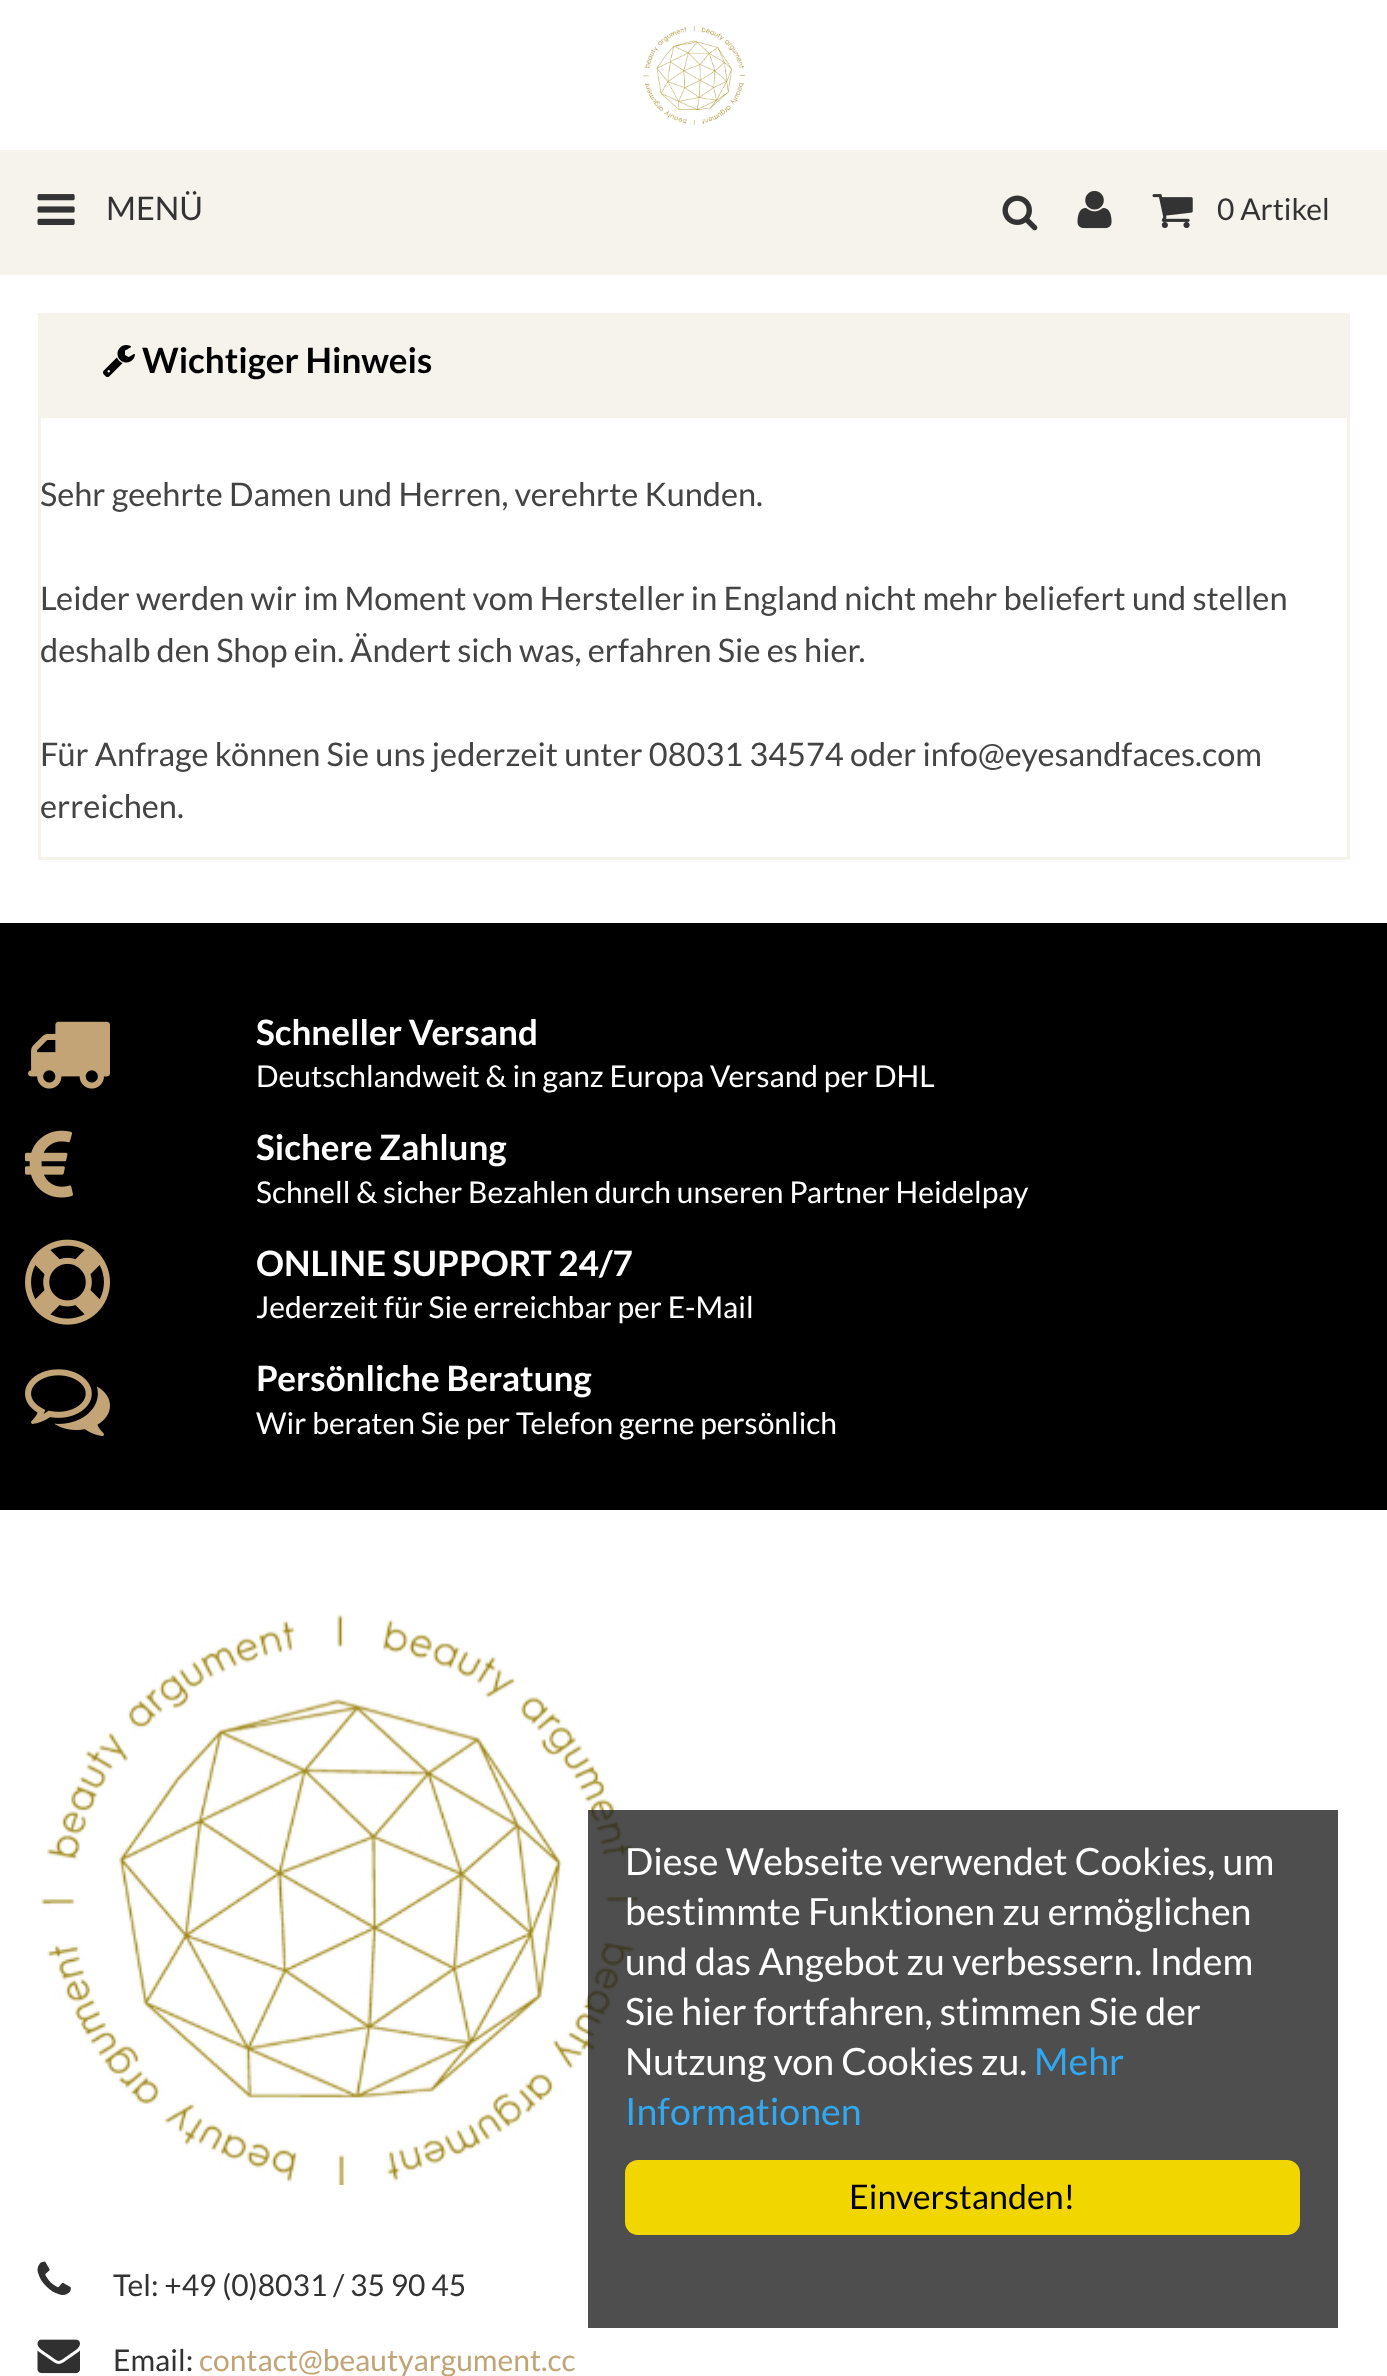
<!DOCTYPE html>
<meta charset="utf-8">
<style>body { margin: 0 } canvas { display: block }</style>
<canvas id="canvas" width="1387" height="2376"></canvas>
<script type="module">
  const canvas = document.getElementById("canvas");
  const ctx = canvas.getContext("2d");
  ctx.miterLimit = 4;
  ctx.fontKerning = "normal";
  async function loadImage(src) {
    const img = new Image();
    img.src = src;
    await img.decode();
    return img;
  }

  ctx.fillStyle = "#ffffff";
  ctx.fillRect(0, 0, 1387, 2376);
  ctx.fillStyle = "#f6f2ec";
  ctx.fillRect(0, 153, 1387, 122);
  ctx.fillStyle = "#f7f3ee";
  ctx.fillRect(0, 150, 1387, 3);
  ctx.drawImage(await loadImage("img1.png"), 643, 25, 102, 100);
  ctx.drawImage(await loadImage("img2.png"), 37, 194, 38, 31);
  ctx.font = "32.5px Lato";
  ctx.fillStyle = "#333333";
  ctx.fillText("MENÜ", 106, 220);
  ctx.drawImage(await loadImage("img3.png"), 1002, 195, 36, 36);
  ctx.drawImage(await loadImage("img4.png"), 1077, 191, 35, 38);
  ctx.drawImage(await loadImage("img5.png"), 1152, 194, 41, 35);
  ctx.font = "30px Lato";
  ctx.fillText("0 Artikel", 1217, 220);
  ctx.strokeStyle = "#f6f2ec";
  ctx.lineWidth = 3;
  ctx.strokeRect(39.5, 314.5, 1309, 544);
  ctx.fillStyle = "#f6f2ec";
  ctx.fillRect(41, 316, 1306, 102);
  ctx.drawImage(await loadImage("img6.png"), 102, 345, 33, 33);
  ctx.font = "bold 35px Lato";
  ctx.fillStyle = "#000000";
  ctx.fillText("Wichtiger Hinweis", 142, 373);
  ctx.font = "32.5px Lato";
  ctx.fillStyle = "#444444";
  ctx.fillText("Sehr geehrte Damen und Herren, verehrte Kunden.", 40, 506);
  ctx.fillText("Leider werden wir im Moment vom Hersteller in England nicht mehr beliefert und stellen", 40, 610);
  ctx.fillText("deshalb den Shop ein. Ändert sich was, erfahren Sie es hier.", 40, 662);
  ctx.fillText("Für Anfrage können Sie uns jederzeit unter 08031 34574 oder info@eyesandfaces.com", 40, 766);
  ctx.fillText("erreichen.", 40, 818);
  ctx.fillStyle = "#000000";
  ctx.fillRect(0, 923, 1387, 587);
  ctx.drawImage(await loadImage("img7.png"), 28, 1021, 82, 68);
  ctx.font = "bold 35px Lato";
  ctx.fillStyle = "#ffffff";
  ctx.fillText("Schneller Versand", 256, 1045);
  ctx.font = "30px Lato";
  ctx.fillText("Deutschlandweit & in ganz Europa Versand per DHL", 256, 1087);
  ctx.drawImage(await loadImage("img8.png"), 25, 1130, 48, 68);
  ctx.font = "bold 35px Lato";
  ctx.fillText("Sichere Zahlung", 256, 1160);
  ctx.font = "30px Lato";
  ctx.fillText("Schnell & sicher Bezahlen durch unseren Partner Heidelpay", 256, 1203);
  ctx.drawImage(await loadImage("img9.png"), 25, 1239, 85, 86);
  ctx.font = "bold 35px Lato";
  ctx.fillText("ONLINE SUPPORT 24/7", 256, 1276);
  ctx.font = "30px Lato";
  ctx.fillText("Jederzeit für Sie erreichbar per E-Mail", 256, 1318);
  ctx.drawImage(await loadImage("img10.png"), 25, 1369, 85, 68);
  ctx.font = "bold 35px Lato";
  ctx.fillText("Persönliche Beratung", 256, 1391);
  ctx.font = "30px Lato";
  ctx.fillText("Wir beraten Sie per Telefon gerne persönlich", 256, 1434);
  ctx.drawImage(await loadImage("img11.png"), 41, 1613, 597, 572);
  ctx.drawImage(await loadImage("img12.png"), 37, 2261, 34, 34);
  ctx.fillStyle = "#333333";
  ctx.fillText("Tel: +49 (0)8031 / 35 90 45", 113, 2296);
  ctx.drawImage(await loadImage("img13.png"), 37, 2339, 43, 35);
  ctx.fillText("Email:", 113, 2371);
  ctx.fillStyle = "#c2a476";
  ctx.fillText("contact@beautyargument.cc", 199, 2371);
  ctx.fillStyle = "rgba(34, 34, 34, 0.8)";
  ctx.fillRect(588, 1810, 750, 518);
  ctx.font = "37.5px Lato";
  ctx.fillStyle = "#ffffff";
  ctx.fillText("Diese Webseite verwendet Cookies, um", 625, 1875);
  ctx.fillText("bestimmte Funktionen zu ermöglichen", 625, 1925);
  ctx.fillText("und das Angebot zu verbessern. Indem", 625, 1975);
  ctx.fillText("Sie hier fortfahren, stimmen Sie der", 625, 2025);
  ctx.fillText("Nutzung von Cookies zu.", 625, 2075);
  ctx.fillStyle = "#31a8f0";
  ctx.fillText("Mehr", 1034, 2075);
  ctx.fillText("Informationen", 625, 2125);
  ctx.fillStyle = "#f1d600";
  ctx.beginPath();
  ctx.roundRect(625, 2160, 675, 75, 13);
  ctx.fill();
  ctx.font = "34px Lato";
  ctx.fillStyle = "#000000";
  ctx.fillText("Einverstanden!", 849, 2209);
</script>
